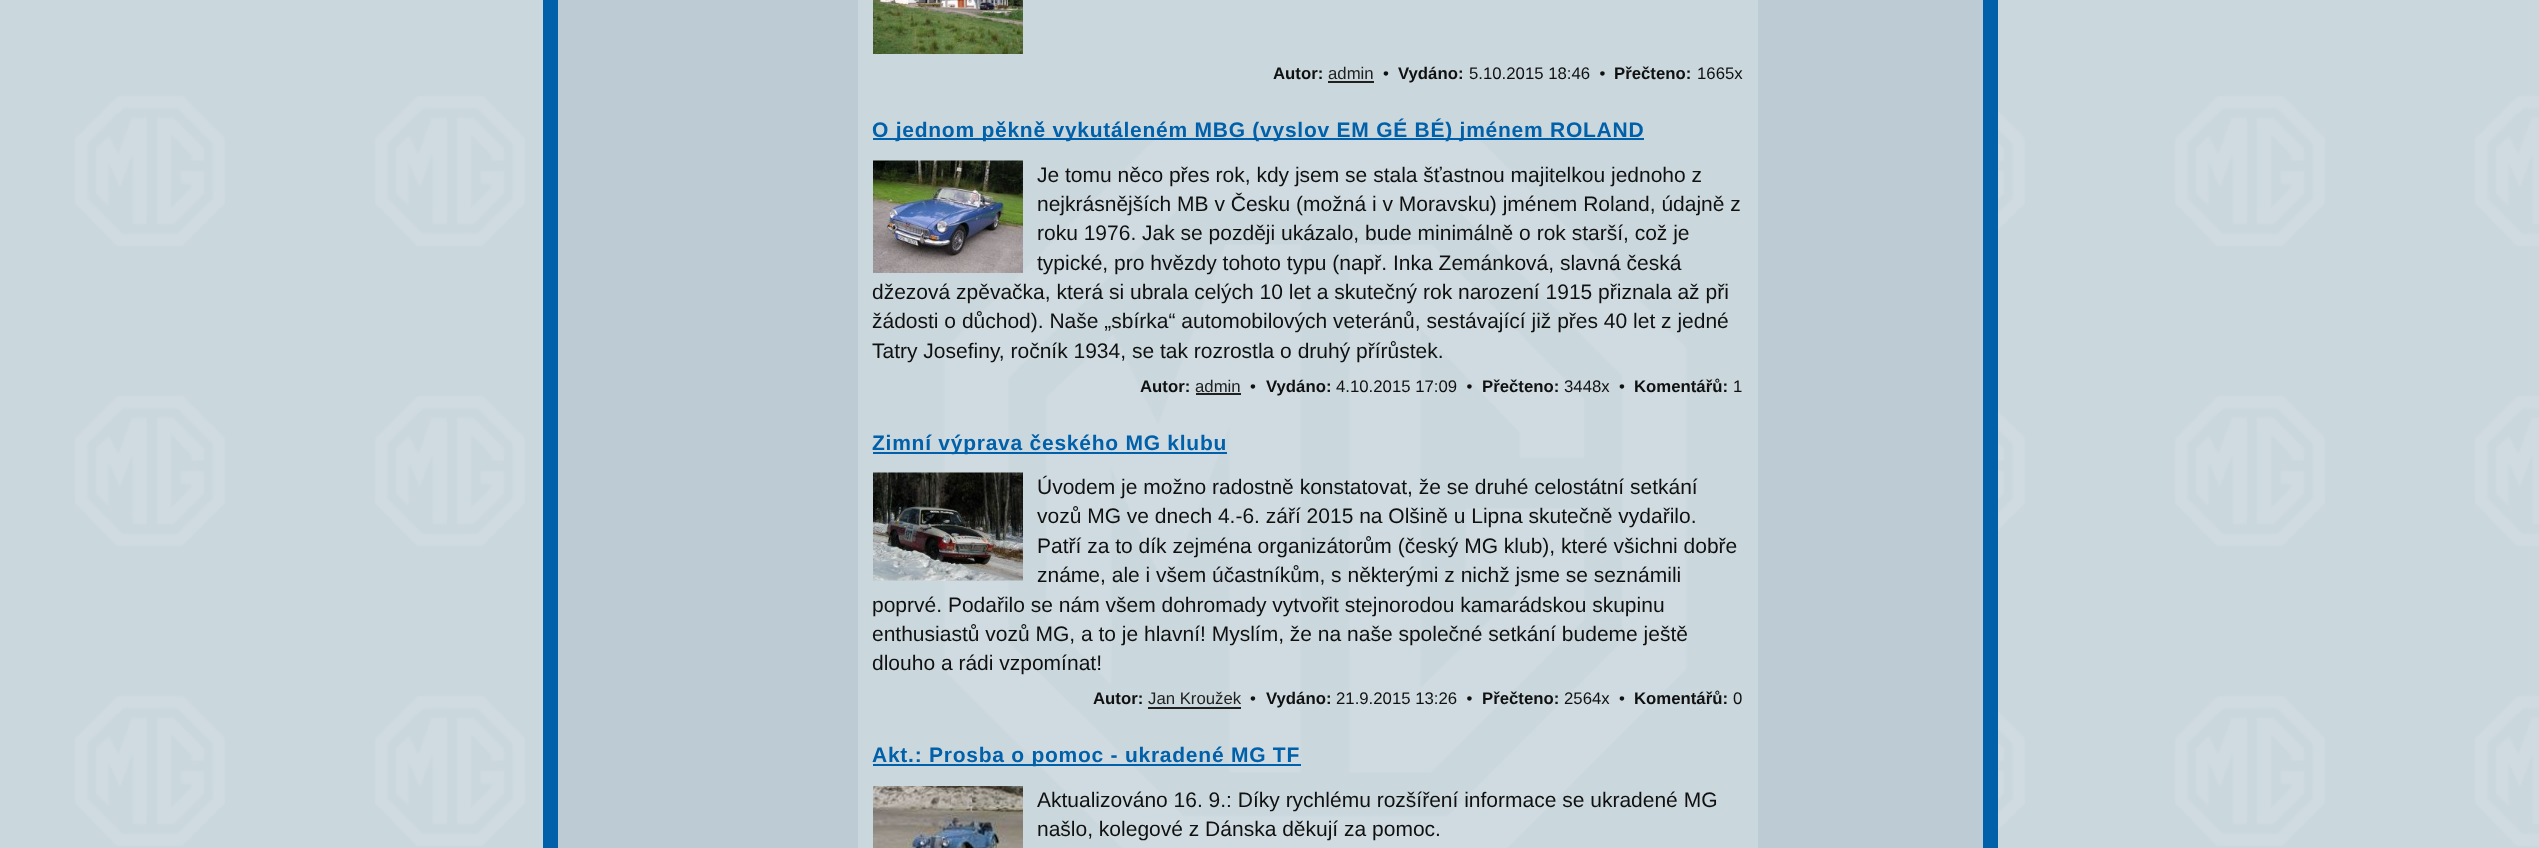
<!DOCTYPE html>
<meta charset="utf-8">
<style>body { margin: 0 } canvas { display: block }</style>
<canvas id="canvas" width="2539" height="848"></canvas>
<script type="module">
  const canvas = document.getElementById("canvas");
  const ctx = canvas.getContext("2d");
  ctx.miterLimit = 4;
  ctx.fontKerning = "normal";
  async function loadImage(src) {
    const img = new Image();
    img.src = src;
    await img.decode();
    return img;
  }

  ctx.fillStyle = "#ffffff";
  ctx.fillRect(0, 0, 2539, 848);
  ctx.drawImage(await loadImage("img1.png"), 0, 0, 2539, 848);
  ctx.fillStyle = "#0060a9";
  ctx.fillRect(543, 0, 1455, 848);
  ctx.fillStyle = "#bdccd4";
  ctx.fillRect(558, 0, 1425, 848);
  ctx.drawImage(await loadImage("img2.png"), 858, 0, 900, 848);
  ctx.drawImage(await loadImage("img3.png"), 873, 0, 150, 54);
  ctx.font = "bold 16.75px Liberation Sans";
  ctx.fillStyle = "#101010";
  ctx.fillText("Autor:", 1273, 79);
  ctx.font = "16.75px Liberation Sans";
  ctx.fillStyle = "#202020";
  ctx.fillText("admin", 1328, 79);
  ctx.fillRect(1328, 81, 46, 2);
  ctx.fillStyle = "#101010";
  ctx.fillText("•", 1383, 79);
  ctx.font = "bold 16.75px Liberation Sans";
  ctx.fillText("Vydáno:", 1398, 79);
  ctx.font = "16.75px Liberation Sans";
  ctx.fillText("5.10.2015 18:46  •", 1469, 79);
  ctx.font = "bold 16.75px Liberation Sans";
  ctx.fillText("Přečteno:", 1614, 79);
  ctx.font = "16.75px Liberation Sans";
  ctx.fillText("1665x", 1697, 79);
  ctx.fillStyle = "#0060a9";
  ctx.fillRect(873, 138, 771, 2);
  ctx.letterSpacing = "0.75px";
  ctx.font = "bold 21px Liberation Sans";
  ctx.fillText("O jednom pěkně vykutáleném MBG (vyslov EM GÉ BÉ) jménem ROLAND", 872, 137);
  ctx.drawImage(await loadImage("img4.png"), 873, 160, 150, 113);
  ctx.letterSpacing = "0px";
  ctx.font = "21px Liberation Sans";
  ctx.fillStyle = "#101010";
  ctx.fillText("Je tomu něco přes rok, kdy jsem se stala šťastnou majitelkou jednoho z", 1037, 182);
  ctx.fillText("nejkrásnějších MB v Česku (možná i v Moravsku) jménem Roland, údajně z", 1037, 211);
  ctx.fillText("roku 1976. Jak se později ukázalo, bude minimálně o rok starší, což je", 1037, 240);
  ctx.fillText("typické, pro hvězdy tohoto typu (např. Inka Zemánková, slavná česká", 1037, 270);
  ctx.fillText("džezová zpěvačka, která si ubrala celých 10 let a skutečný rok narození 1915 přiznala až při", 872, 299);
  ctx.fillText("žádosti o důchod). Naše „sbírka“ automobilových veteránů, sestávající již přes 40 let z jedné", 872, 328);
  ctx.fillText("Tatry Josefiny, ročník 1934, se tak rozrostla o druhý přírůstek.", 872, 358);
  ctx.font = "bold 16.75px Liberation Sans";
  ctx.fillText("Autor:", 1140, 392);
  ctx.font = "16.75px Liberation Sans";
  ctx.fillStyle = "#202020";
  ctx.fillText("admin", 1195, 392);
  ctx.fillRect(1196, 393, 45, 2);
  ctx.fillStyle = "#101010";
  ctx.fillText("•", 1250, 392);
  ctx.font = "bold 16.75px Liberation Sans";
  ctx.fillText("Vydáno:", 1266, 392);
  ctx.font = "16.75px Liberation Sans";
  ctx.fillText("4.10.2015 17:09  •", 1336, 392);
  ctx.font = "bold 16.75px Liberation Sans";
  ctx.fillText("Přečteno:", 1482, 392);
  ctx.font = "16.75px Liberation Sans";
  ctx.fillText("3448x  •", 1564, 392);
  ctx.font = "bold 16.75px Liberation Sans";
  ctx.fillText("Komentářů:", 1634, 392);
  ctx.font = "16.75px Liberation Sans";
  ctx.fillText("1", 1733, 392);
  ctx.fillStyle = "#0060a9";
  ctx.fillRect(873, 452, 354, 2);
  ctx.letterSpacing = "0.75px";
  ctx.font = "bold 21px Liberation Sans";
  ctx.fillText("Zimní výprava českého MG klubu", 872, 450);
  ctx.drawImage(await loadImage("img5.png"), 873, 472, 150, 109);
  ctx.letterSpacing = "0px";
  ctx.font = "21px Liberation Sans";
  ctx.fillStyle = "#101010";
  ctx.fillText("Úvodem je možno radostně konstatovat, že se druhé celostátní setkání", 1037, 494);
  ctx.fillText("vozů MG ve dnech 4.-6. září 2015 na Olšině u Lipna skutečně vydařilo.", 1037, 523);
  ctx.fillText("Patří za to dík zejména organizátorům (český MG klub), které všichni dobře", 1037, 553);
  ctx.fillText("známe, ale i všem účastníkům, s některými z nichž jsme se seznámili", 1037, 582);
  ctx.fillText("poprvé. Podařilo se nám všem dohromady vytvořit stejnorodou kamarádskou skupinu", 872, 612);
  ctx.fillText("enthusiastů vozů MG, a to je hlavní! Myslím, že na naše společné setkání budeme ještě", 872, 641);
  ctx.fillText("dlouho a rádi vzpomínat!", 872, 670);
  ctx.font = "bold 16.75px Liberation Sans";
  ctx.fillText("Autor:", 1093, 704);
  ctx.font = "16.75px Liberation Sans";
  ctx.fillStyle = "#202020";
  ctx.fillText("Jan Kroužek", 1148, 704);
  ctx.fillRect(1148, 707, 93, 2);
  ctx.fillStyle = "#101010";
  ctx.fillText("•", 1250, 704);
  ctx.font = "bold 16.75px Liberation Sans";
  ctx.fillText("Vydáno:", 1266, 704);
  ctx.font = "16.75px Liberation Sans";
  ctx.fillText("21.9.2015 13:26  •", 1336, 704);
  ctx.font = "bold 16.75px Liberation Sans";
  ctx.fillText("Přečteno:", 1482, 704);
  ctx.font = "16.75px Liberation Sans";
  ctx.fillText("2564x  •", 1564, 704);
  ctx.font = "bold 16.75px Liberation Sans";
  ctx.fillText("Komentářů:", 1634, 704);
  ctx.font = "16.75px Liberation Sans";
  ctx.fillText("0", 1733, 704);
  ctx.fillStyle = "#0060a9";
  ctx.fillRect(873, 764, 428, 2);
  ctx.letterSpacing = "0.75px";
  ctx.font = "bold 21px Liberation Sans";
  ctx.fillText("Akt.: Prosba o pomoc - ukradené MG TF", 872, 762);
  ctx.drawImage(await loadImage("img6.png"), 873, 786, 150, 62);
  ctx.letterSpacing = "0px";
  ctx.font = "21px Liberation Sans";
  ctx.fillStyle = "#101010";
  ctx.fillText("Aktualizováno 16. 9.: Díky rychlému rozšíření informace se ukradené MG", 1037, 807);
  ctx.fillText("našlo, kolegové z Dánska děkují za pomoc.", 1037, 836);
</script>
